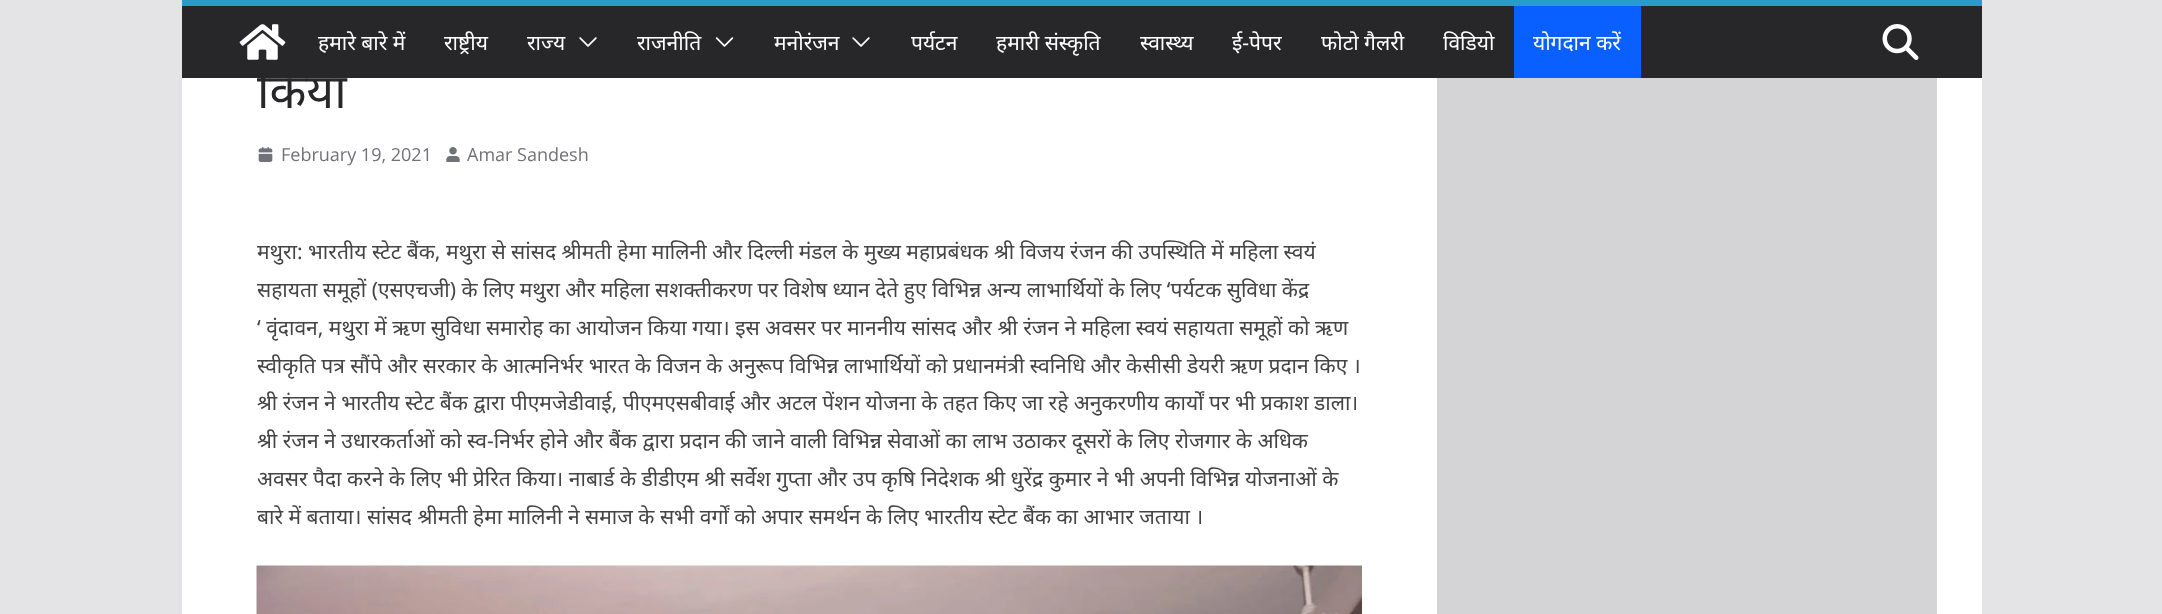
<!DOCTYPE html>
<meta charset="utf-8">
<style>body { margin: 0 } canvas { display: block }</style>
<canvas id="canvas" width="2162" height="614"></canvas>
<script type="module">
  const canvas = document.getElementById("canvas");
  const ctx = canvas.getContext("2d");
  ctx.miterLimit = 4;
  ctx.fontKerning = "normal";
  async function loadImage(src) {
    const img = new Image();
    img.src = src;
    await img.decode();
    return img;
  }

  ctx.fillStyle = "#e4e4e7";
  ctx.fillRect(0, 0, 2162, 614);
  ctx.fillStyle = "#27272a";
  ctx.fillRect(182, 6, 1800, 72);
  ctx.fillStyle = "#289dcc";
  ctx.fillRect(182, 0, 1800, 6);
  ctx.drawImage(await loadImage("img1.png"), 239, 24, 47, 36);
  ctx.font = "21px Noto Sans";
  ctx.fillStyle = "#ffffff";
  ctx.fillText("हमारे बारे में", 318, 50);
  ctx.fillText("राष्ट्रीय", 444, 50);
  ctx.fillText("राज्य", 527, 50);
  ctx.drawImage(await loadImage("img2.png"), 579, 37, 18, 10);
  ctx.fillText("राजनीति", 637, 50);
  ctx.drawImage(await loadImage("img3.png"), 715, 37, 19, 10);
  ctx.fillText("मनोरंजन", 774, 50);
  ctx.drawImage(await loadImage("img2.png"), 852, 37, 18, 10);
  ctx.fillText("पर्यटन", 911, 50);
  ctx.fillText("हमारी संस्कृति", 996, 50);
  ctx.fillText("स्वास्थ्य", 1140, 50);
  ctx.fillText("ई-पेपर", 1232, 50);
  ctx.fillText("फोटो गैलरी", 1321, 50);
  ctx.fillText("विडियो", 1443, 50);
  ctx.fillStyle = "#0960ff";
  ctx.fillRect(1514, 6, 127, 72);
  ctx.fillStyle = "#ffffff";
  ctx.fillText("योगदान करें", 1533, 50);
  ctx.drawImage(await loadImage("img4.png"), 1882, 24, 37, 36);
  ctx.fillRect(182, 78, 1800, 536);
  ctx.font = "48px Noto Sans";
  ctx.fillStyle = "#27272a";
  ctx.fillText("किया", 257, 108);
  ctx.drawImage(await loadImage("img5.png"), 258, 147, 15, 15);
  ctx.font = "18px Open Sans";
  ctx.fillStyle = "#71717a";
  ctx.fillText("February 19, 2021", 281, 161);
  ctx.drawImage(await loadImage("img6.png"), 446, 147, 14, 15);
  ctx.fillText("Amar Sandesh", 467, 161);
  ctx.font = "21px Noto Sans";
  ctx.fillStyle = "#444444";
  ctx.fillText("मथुरा: भारतीय स्टेट बैंक, मथुरा से सांसद श्रीमती हेमा मालिनी और दिल्ली मंडल के मुख्य महाप्रबंधक श्री विजय रंजन की उपस्थिति में महिला स्वयं", 257, 259);
  ctx.fillText("सहायता समूहों (एसएचजी) के लिए मथुरा और महिला सशक्तीकरण पर विशेष ध्यान देते हुए विभिन्न अन्य लाभार्थियों के लिए ‘पर्यटक सुविधा केंद्र", 257, 297);
  ctx.fillText("‘ वृंदावन, मथुरा में ऋण सुविधा समारोह का आयोजन किया गया। इस अवसर पर माननीय सांसद और श्री रंजन ने महिला स्वयं सहायता समूहों को ऋण", 257, 335);
  ctx.fillText("स्वीकृति पत्र सौंपे और सरकार के आत्मनिर्भर भारत के विजन के अनुरूप विभिन्न लाभार्थियों को प्रधानमंत्री स्वनिधि और केसीसी डेयरी ऋण प्रदान किए ।", 257, 373);
  ctx.fillText("श्री रंजन ने भारतीय स्टेट बैंक द्वारा पीएमजेडीवाई, पीएमएसबीवाई और अटल पेंशन योजना के तहत किए जा रहे अनुकरणीय कार्यों पर भी प्रकाश डाला।", 257, 410);
  ctx.fillText("श्री रंजन ने उधारकर्ताओं को स्व-निर्भर होने और बैंक द्वारा प्रदान की जाने वाली विभिन्न सेवाओं का लाभ उठाकर दूसरों के लिए रोजगार के अधिक", 257, 448);
  ctx.fillText("अवसर पैदा करने के लिए भी प्रेरित किया। नाबार्ड के डीडीएम श्री सर्वेश गुप्ता और उप कृषि निदेशक श्री धुरेंद्र कुमार ने भी अपनी विभिन्न योजनाओं के", 257, 486);
  ctx.fillText("बारे में बताया। सांसद श्रीमती हेमा मालिनी ने समाज के सभी वर्गों को अपार समर्थन के लिए भारतीय स्टेट बैंक का आभार जताया ।", 257, 524);
  ctx.drawImage(await loadImage("img7.png"), 256, 565, 1106, 49);
  ctx.fillStyle = "#d4d4d7";
  ctx.fillRect(1437, 78, 500, 536);
</script>
